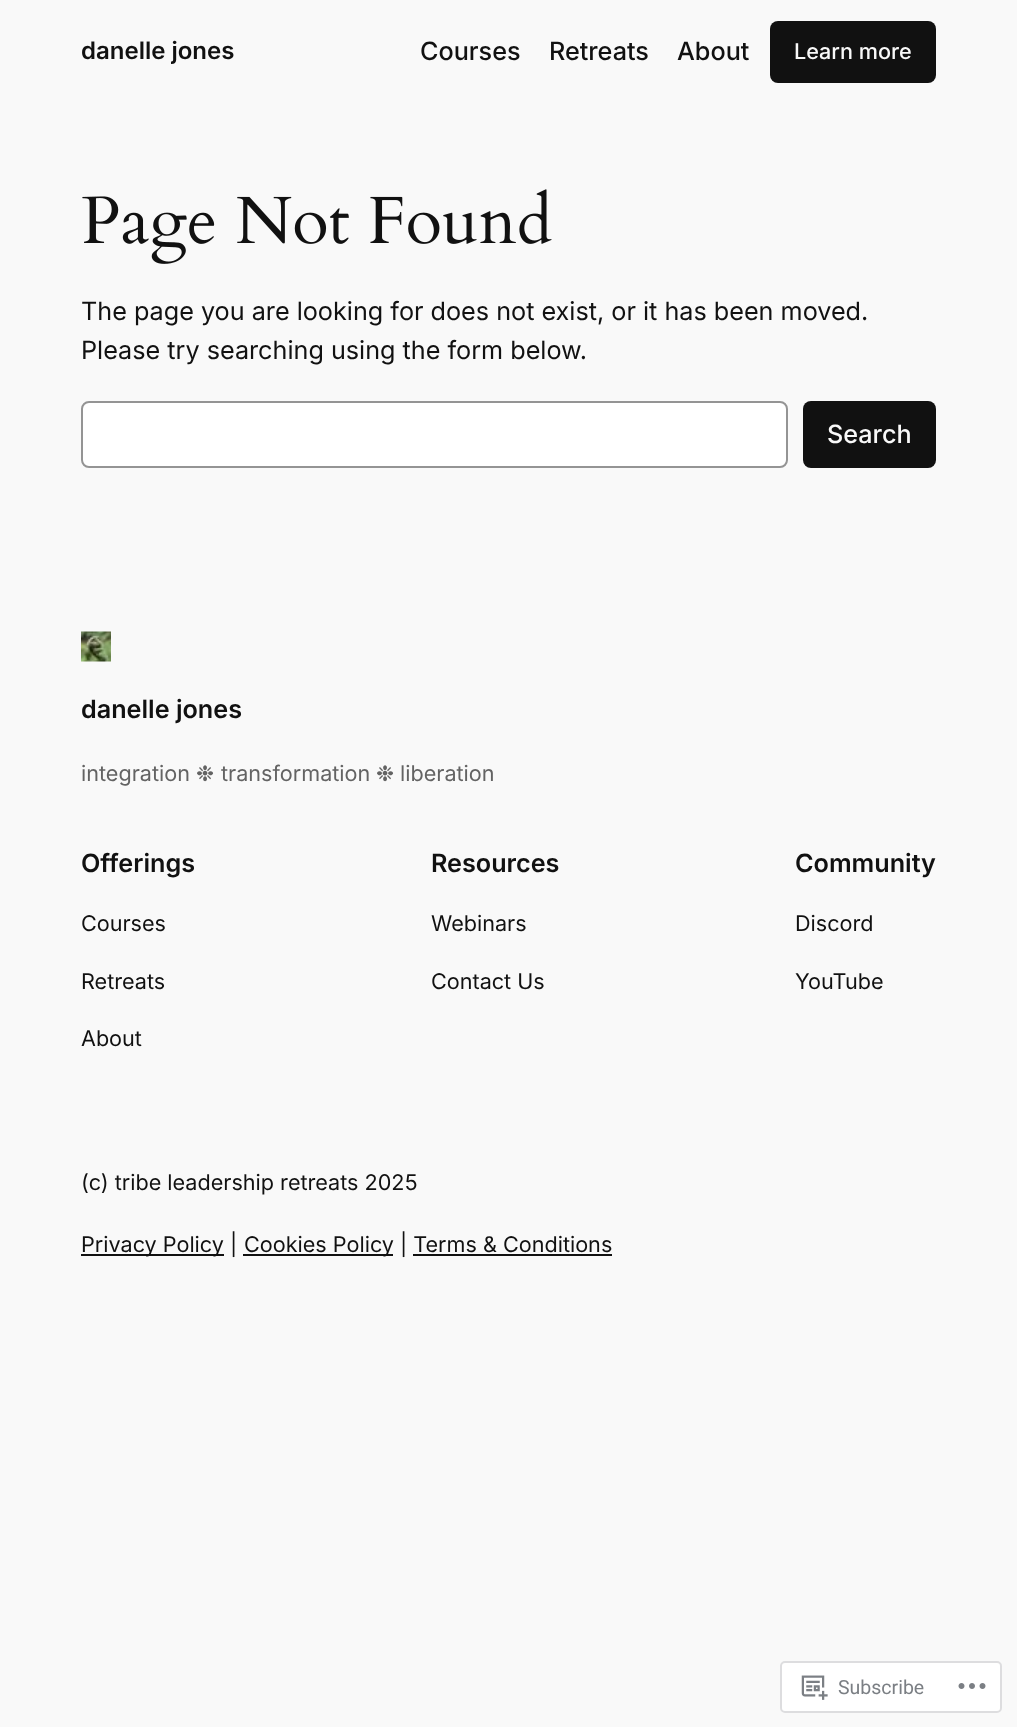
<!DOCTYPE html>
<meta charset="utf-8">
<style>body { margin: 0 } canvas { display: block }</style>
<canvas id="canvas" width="1017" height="1727"></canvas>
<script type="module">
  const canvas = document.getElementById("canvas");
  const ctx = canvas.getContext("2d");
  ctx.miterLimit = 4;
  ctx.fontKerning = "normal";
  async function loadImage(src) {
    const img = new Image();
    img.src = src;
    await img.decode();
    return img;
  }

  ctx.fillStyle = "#f9f9f9";
  ctx.fillRect(0, 0, 1017, 1727);
  ctx.font = "600 24px Inter";
  ctx.fillStyle = "#111111";
  ctx.fillText("danelle jones", 81, 59);
  ctx.font = "500 25.2px Inter";
  ctx.fillText("Courses", 420, 60);
  ctx.fillText("Retreats", 549, 60);
  ctx.fillText("About", 677, 60);
  ctx.beginPath();
  ctx.roundRect(770, 21, 166, 62, 8);
  ctx.fill();
  ctx.font = "500 21.6px Inter";
  ctx.fillStyle = "#f9f9f9";
  ctx.fillText("Learn more", 794, 59);
  ctx.drawImage(await loadImage("img1.png"), 82, 189, 470, 75);
  ctx.font = "25.2px Inter";
  ctx.fillStyle = "#111111";
  ctx.fillText("The page you are looking for does not exist, or it has been moved.", 81, 320);
  ctx.fillText("Please try searching using the form below.", 81, 359);
  ctx.fillStyle = "#ffffff";
  ctx.beginPath();
  ctx.roundRect(82, 402, 705, 65, 7);
  ctx.fill();
  ctx.strokeStyle = "#949494";
  ctx.lineWidth = 2;
  ctx.stroke();
  ctx.fillStyle = "#111111";
  ctx.beginPath();
  ctx.roundRect(803, 401, 133, 67, 8);
  ctx.fill();
  ctx.font = "500 25.2px Inter";
  ctx.fillStyle = "#f9f9f9";
  ctx.fillText("Search", 827, 443);
  ctx.drawImage(await loadImage("img2.png"), 81, 631, 30, 31);
  ctx.font = "600 25.2px Inter";
  ctx.fillStyle = "#111111";
  ctx.fillText("danelle jones", 81, 718);
  ctx.font = "21.6px Inter";
  ctx.fillStyle = "#636363";
  ctx.fillText("integration", 81, 781);
  ctx.font = "21.6px DejaVu Sans";
  ctx.fillText("❉", 196, 781);
  ctx.font = "21.6px Inter";
  ctx.fillText("transformation", 221, 781);
  ctx.font = "21.6px DejaVu Sans";
  ctx.fillText("❉", 376, 781);
  ctx.font = "21.6px Inter";
  ctx.fillText("liberation", 400, 781);
  ctx.font = "600 25.2px Inter";
  ctx.fillStyle = "#111111";
  ctx.fillText("Offerings", 81, 872);
  ctx.font = "21.6px Inter";
  ctx.fillText("Courses", 81, 931);
  ctx.fillText("Retreats", 81, 989);
  ctx.fillText("About", 81, 1046);
  ctx.font = "600 25.2px Inter";
  ctx.fillText("Resources", 431, 872);
  ctx.font = "21.6px Inter";
  ctx.fillText("Webinars", 431, 931);
  ctx.fillText("Contact Us", 431, 989);
  ctx.font = "600 25.2px Inter";
  ctx.fillText("Community", 795, 872);
  ctx.font = "21.6px Inter";
  ctx.fillText("Discord", 795, 931);
  ctx.fillText("YouTube", 795, 989);
  ctx.fillText("(c) tribe leadership retreats 2025", 81, 1190);
  ctx.fillRect(81, 1254, 143, 2);
  ctx.fillText("Privacy Policy |", 81, 1252);
  ctx.fillRect(243, 1254, 150, 2);
  ctx.fillText("Cookies Policy | Terms & Conditions", 244, 1252);
  ctx.fillRect(413, 1254, 199, 2);
  ctx.fillStyle = "#ffffff";
  ctx.beginPath();
  ctx.roundRect(781, 1662, 220, 50, 4);
  ctx.fill();
  ctx.strokeStyle = "#dddddf";
  ctx.stroke();
  ctx.drawImage(await loadImage("img3.png"), 801, 1675, 27, 25);
  ctx.font = "19.5px Roboto";
  ctx.fillStyle = "#7b7f84";
  ctx.fillText("Subscribe", 838, 1694);
  ctx.drawImage(await loadImage("img4.png"), 958, 1683, 28, 6);
</script>
